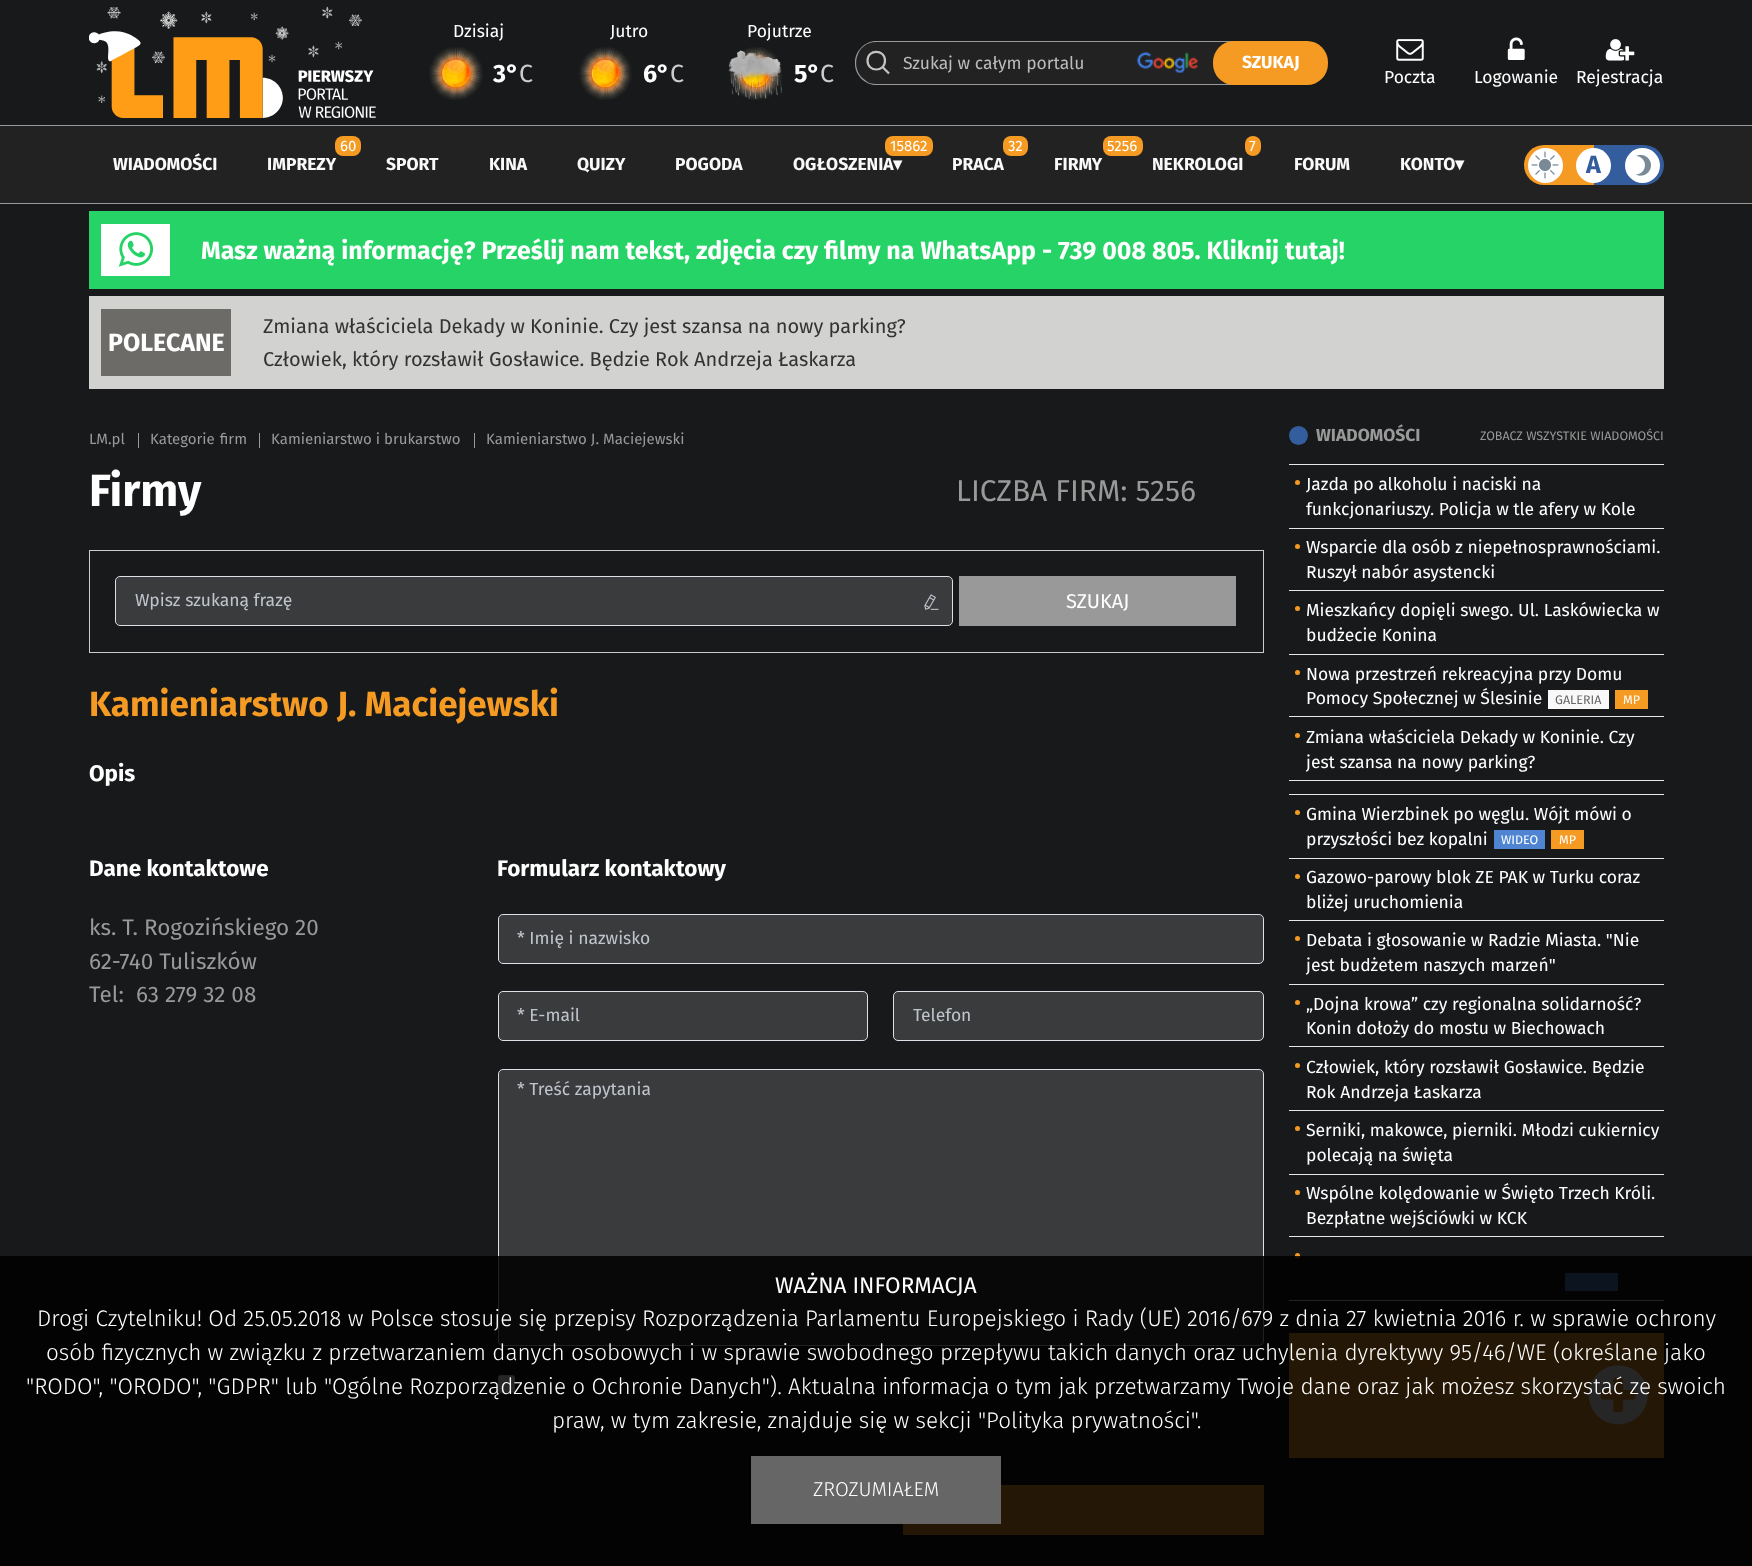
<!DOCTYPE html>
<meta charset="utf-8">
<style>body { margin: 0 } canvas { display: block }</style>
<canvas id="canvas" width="1752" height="1566"></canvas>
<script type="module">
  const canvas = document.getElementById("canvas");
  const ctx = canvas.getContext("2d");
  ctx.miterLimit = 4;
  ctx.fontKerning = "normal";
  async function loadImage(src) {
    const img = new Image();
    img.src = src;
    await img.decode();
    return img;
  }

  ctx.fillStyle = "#18191a";
  ctx.fillRect(0, 0, 1752, 1566);
  ctx.drawImage(await loadImage("img1.png"), 89, 6, 287, 112);
  ctx.font = "17.5px Fira Sans";
  ctx.fillStyle = "#ffffff";
  ctx.fillText("Dzisiaj", 453, 37);
  ctx.drawImage(await loadImage("img2.png"), 429, 47, 54, 53);
  ctx.font = "bold 25px Fira Sans";
  ctx.fillText("3°", 493, 82);
  ctx.font = "25px Fira Sans";
  ctx.fillStyle = "#cccccc";
  ctx.fillText("C", 519, 82);
  ctx.font = "17.5px Fira Sans";
  ctx.fillStyle = "#ffffff";
  ctx.fillText("Jutro", 610, 37);
  ctx.drawImage(await loadImage("img3.png"), 579, 47, 53, 53);
  ctx.font = "bold 25px Fira Sans";
  ctx.fillText("6°", 643, 82);
  ctx.font = "25px Fira Sans";
  ctx.fillStyle = "#cccccc";
  ctx.fillText("C", 670, 82);
  ctx.font = "17.5px Fira Sans";
  ctx.fillStyle = "#ffffff";
  ctx.fillText("Pojutrze", 747, 37);
  ctx.drawImage(await loadImage("img4.png"), 728, 47, 54, 53);
  ctx.font = "bold 25px Fira Sans";
  ctx.fillText("5°", 794, 82);
  ctx.font = "25px Fira Sans";
  ctx.fillStyle = "#cccccc";
  ctx.fillText("C", 820, 82);
  ctx.fillStyle = "#222222";
  ctx.beginPath();
  ctx.roundRect(855, 41, 379, 44, [21, 0, 0, 21]);
  ctx.fill();
  ctx.fillStyle = "#999999";
  ctx.beginPath();
  ctx.moveTo(876, 41);
  ctx.lineTo(1234, 41);
  ctx.lineTo(1234, 85);
  ctx.lineTo(876, 85);
  ctx.bezierCurveTo(865, 85, 855, 75, 855, 64);
  ctx.lineTo(855, 62);
  ctx.bezierCurveTo(855, 51, 865, 41, 876, 41);
  ctx.closePath();
  ctx.moveTo(876, 42);
  ctx.lineTo(1234, 42);
  ctx.lineTo(1234, 84);
  ctx.lineTo(876, 84);
  ctx.bezierCurveTo(872, 84, 868, 83, 865, 80);
  ctx.bezierCurveTo(849, 69, 856, 42, 876, 42);
  ctx.closePath();
  ctx.fill("evenodd");
  ctx.beginPath();
  ctx.moveTo(867.5, 60.5);
  ctx.bezierCurveTo(867.5, 49, 885, 49, 885, 60.5);
  ctx.bezierCurveTo(885, 72.5, 867.5, 72.5, 867.5, 60.5);
  ctx.closePath();
  ctx.moveTo(882.5, 67);
  ctx.lineTo(889, 73.5);
  ctx.strokeStyle = "#c4c4c4";
  ctx.lineWidth = 2.2;
  ctx.stroke();
  ctx.drawImage(await loadImage("img5.png"), 1137, 52, 61, 21);
  ctx.font = "17.5px Fira Sans";
  ctx.fillStyle = "#bbbbbb";
  ctx.fillText("Szukaj w całym portalu", 903, 69);
  ctx.fillStyle = "#f59b23";
  ctx.beginPath();
  ctx.roundRect(1213, 41, 115, 44, 21);
  ctx.fill();
  ctx.font = "bold 17.5px Fira Sans";
  ctx.fillStyle = "#ffffff";
  ctx.fillText("SZUKAJ", 1242, 68);
  ctx.drawImage(await loadImage("img6.png"), 1396, 39, 28, 22);
  ctx.font = "17.5px Fira Sans";
  ctx.fillText("Poczta", 1384, 83);
  ctx.drawImage(await loadImage("img7.png"), 1507, 37, 18, 23);
  ctx.fillText("Logowanie", 1474, 83);
  ctx.drawImage(await loadImage("img8.png"), 1605, 39, 30, 22);
  ctx.fillText("Rejestracja", 1576, 83);
  ctx.fillStyle = "#222222";
  ctx.fillRect(0, 126, 1752, 77);
  ctx.fillStyle = "#999999";
  ctx.fillRect(0, 125, 1752, 1);
  ctx.fillRect(0, 203, 1752, 1);
  ctx.font = "bold 17.5px Fira Sans";
  ctx.fillStyle = "#f9f9f9";
  ctx.fillText("WIADOMOŚCI", 113, 170);
  ctx.fillStyle = "#f59b23";
  ctx.beginPath();
  ctx.roundRect(335, 136, 26, 20, 8);
  ctx.fill();
  ctx.font = "15px Fira Sans";
  ctx.fillStyle = "#ffffff";
  ctx.fillText("60", 340, 151);
  ctx.font = "bold 17.5px Fira Sans";
  ctx.fillStyle = "#f9f9f9";
  ctx.fillText("IMPREZY", 267, 170);
  ctx.fillText("SPORT", 386, 170);
  ctx.fillText("KINA", 489, 170);
  ctx.fillText("QUIZY", 577, 170);
  ctx.fillText("POGODA", 675, 170);
  ctx.fillStyle = "#f59b23";
  ctx.beginPath();
  ctx.roundRect(885, 136, 48, 20, 8);
  ctx.fill();
  ctx.font = "15px Fira Sans";
  ctx.fillStyle = "#ffffff";
  ctx.fillText("15862", 890, 151);
  ctx.font = "bold 17.5px Fira Sans";
  ctx.fillStyle = "#f9f9f9";
  ctx.fillText("OGŁOSZENIA", 793, 170);
  ctx.font = "bold 17.5px DejaVu Sans";
  ctx.fillText("▾", 893, 170);
  ctx.fillStyle = "#f59b23";
  ctx.beginPath();
  ctx.roundRect(1003, 136, 25, 20, 8);
  ctx.fill();
  ctx.font = "15px Fira Sans";
  ctx.fillStyle = "#ffffff";
  ctx.fillText("32", 1008, 151);
  ctx.font = "bold 17.5px Fira Sans";
  ctx.fillStyle = "#f9f9f9";
  ctx.fillText("PRACA", 952, 170);
  ctx.fillStyle = "#f59b23";
  ctx.beginPath();
  ctx.roundRect(1103, 136, 40, 20, 8);
  ctx.fill();
  ctx.font = "15px Fira Sans";
  ctx.fillStyle = "#ffffff";
  ctx.fillText("5256", 1107, 151);
  ctx.font = "bold 17.5px Fira Sans";
  ctx.fillStyle = "#f9f9f9";
  ctx.fillText("FIRMY", 1054, 170);
  ctx.fillStyle = "#f59b23";
  ctx.beginPath();
  ctx.roundRect(1245, 136, 16, 20, 8);
  ctx.fill();
  ctx.font = "15px Fira Sans";
  ctx.fillStyle = "#ffffff";
  ctx.fillText("7", 1249, 151);
  ctx.font = "bold 17.5px Fira Sans";
  ctx.fillStyle = "#f9f9f9";
  ctx.fillText("NEKROLOGI", 1152, 170);
  ctx.fillText("FORUM", 1294, 170);
  ctx.fillText("KONTO", 1400, 170);
  ctx.font = "bold 17.5px DejaVu Sans";
  ctx.fillText("▾", 1455, 170);
  ctx.fillStyle = "#f59b23";
  ctx.beginPath();
  ctx.roundRect(1524, 145, 70, 40, [20, 0, 0, 20]);
  ctx.fill();
  ctx.fillStyle = "#345d9d";
  ctx.beginPath();
  ctx.roundRect(1594, 145, 70, 40, [0, 20, 20, 0]);
  ctx.fill();
  ctx.fillStyle = "#ffffff";
  ctx.beginPath();
  ctx.arc(1545.5, 165.5, 17.5, 0, Math.PI * 2);
  ctx.fill();
  ctx.drawImage(await loadImage("img9.png"), 1531, 151, 28, 28);
  ctx.beginPath();
  ctx.arc(1593.5, 165.5, 17.5, 0, Math.PI * 2);
  ctx.fill();
  ctx.font = "bold 25px Fira Sans";
  ctx.fillStyle = "#345d9d";
  ctx.fillText("A", 1586, 173);
  ctx.fillStyle = "#ffffff";
  ctx.beginPath();
  ctx.arc(1642.5, 165.5, 17.5, 0, Math.PI * 2);
  ctx.fill();
  ctx.drawImage(await loadImage("img10.png"), 1636, 154, 15, 22);
  ctx.fillStyle = "#25d366";
  ctx.fillRect(89, 211, 1575, 78);
  ctx.fillStyle = "#ffffff";
  ctx.fillRect(101, 224, 69, 52);
  ctx.drawImage(await loadImage("img11.png"), 118, 232, 35, 35);
  ctx.fillText("Masz ważną informację? Prześlij nam tekst, zdjęcia czy filmy na WhatsApp - 739 008 805. Kliknij tutaj!", 201, 259);
  ctx.fillStyle = "#d2d2d1";
  ctx.fillRect(89, 296, 1575, 93);
  ctx.fillStyle = "#6d6b67";
  ctx.fillRect(101, 309, 130, 67);
  ctx.fillStyle = "#ffffff";
  ctx.fillText("POLECANE", 108, 351);
  ctx.font = "20px Fira Sans";
  ctx.fillStyle = "#333333";
  ctx.fillText("Zmiana właściciela Dekady w Koninie. Czy jest szansa na nowy parking?", 263, 333);
  ctx.fillText("Człowiek, który rozsławił Gosławice. Będzie Rok Andrzeja Łaskarza", 263, 366);
  ctx.font = "15px Fira Sans";
  ctx.fillStyle = "#999999";
  ctx.fillText("LM.pl", 89, 444);
  ctx.fillRect(138, 433, 1, 15);
  ctx.wordSpacing = "1px";
  ctx.fillText("Kategorie firm", 150, 444);
  ctx.fillRect(259, 433, 1, 15);
  ctx.wordSpacing = "0px";
  ctx.fillText("Kamieniarstwo i brukarstwo", 271, 444);
  ctx.fillRect(474, 433, 1, 15);
  ctx.fillText("Kamieniarstwo J. Maciejewski", 486, 444);
  ctx.font = "bold 45px Fira Sans";
  ctx.fillStyle = "#ffffff";
  ctx.fillText("Firmy", 89, 506);
  ctx.font = "30px Fira Sans";
  ctx.fillStyle = "#999999";
  ctx.fillText("LICZBA FIRM: 5256", 956, 501);
  ctx.strokeStyle = "#cccccc";
  ctx.lineWidth = 1;
  ctx.strokeRect(89.5, 550.5, 1174, 102);
  ctx.fillStyle = "#3a3b3c";
  ctx.beginPath();
  ctx.roundRect(115.5, 576.5, 837, 49, 4.5);
  ctx.fill();
  ctx.strokeStyle = "#dcdfe6";
  ctx.stroke();
  ctx.font = "17.5px Fira Sans";
  ctx.fillStyle = "#c0c4cc";
  ctx.fillText("Wpisz szukaną frazę", 135, 606);
  ctx.drawImage(await loadImage("img12.png"), 924, 594, 15, 16);
  ctx.fillStyle = "#999999";
  ctx.fillRect(959, 576, 277, 50);
  ctx.font = "20px Fira Sans";
  ctx.fillStyle = "#ffffff";
  ctx.fillText("SZUKAJ", 1066, 608);
  ctx.font = "bold 35px Fira Sans";
  ctx.fillStyle = "#f59b23";
  ctx.fillText("Kamieniarstwo J. Maciejewski", 89, 716);
  ctx.font = "bold 22.5px Fira Sans";
  ctx.fillStyle = "#ffffff";
  ctx.fillText("Opis", 89, 781);
  ctx.fillText("Dane kontaktowe", 89, 876);
  ctx.font = "22.5px Fira Sans";
  ctx.fillStyle = "#999999";
  ctx.fillText("ks. T. Rogozińskiego 20", 89, 935);
  ctx.fillText("62-740 Tuliszków", 89, 969);
  ctx.fillText("Tel:", 89, 1002);
  ctx.fillText("63 279 32 08", 136, 1002);
  ctx.font = "bold 22.5px Fira Sans";
  ctx.fillStyle = "#ffffff";
  ctx.fillText("Formularz kontaktowy", 497, 876);
  ctx.fillStyle = "#3a3b3c";
  ctx.beginPath();
  ctx.roundRect(498.5, 914.5, 765, 49, 4.5);
  ctx.fill();
  ctx.stroke();
  ctx.font = "17.5px Fira Sans";
  ctx.fillStyle = "#c0c4cc";
  ctx.fillText("* Imię i nazwisko", 517, 944);
  ctx.fillStyle = "#3a3b3c";
  ctx.beginPath();
  ctx.roundRect(498.5, 991.5, 369, 49, 4.5);
  ctx.fill();
  ctx.stroke();
  ctx.fillStyle = "#c0c4cc";
  ctx.fillText("* E-mail", 517, 1021);
  ctx.fillStyle = "#3a3b3c";
  ctx.beginPath();
  ctx.roundRect(893.5, 991.5, 370, 49, 4.5);
  ctx.fill();
  ctx.stroke();
  ctx.fillStyle = "#c0c4cc";
  ctx.fillText("Telefon", 913, 1021);
  ctx.fillStyle = "#3a3b3c";
  ctx.beginPath();
  ctx.roundRect(498.5, 1069.5, 765, 276, 4.5);
  ctx.fill();
  ctx.stroke();
  ctx.fillStyle = "#c0c4cc";
  ctx.fillText("* Treść zapytania", 517, 1095);
  ctx.fillStyle = "#ffffff";
  ctx.beginPath();
  ctx.roundRect(498.5, 1375.5, 16, 17, 2);
  ctx.fill();
  ctx.stroke();
  ctx.fillStyle = "#f59b23";
  ctx.fillRect(903, 1485, 361, 50);
  ctx.fillStyle = "#345d9d";
  ctx.beginPath();
  ctx.arc(1298.5, 435.5, 9.5, 0, Math.PI * 2);
  ctx.fill();
  ctx.font = "bold 17.5px Fira Sans";
  ctx.fillStyle = "#999999";
  ctx.fillText("WIADOMOŚCI", 1316, 441);
  ctx.font = "12.5px Fira Sans";
  ctx.fillText("ZOBACZ WSZYSTKIE WIADOMOŚCI", 1480, 440);
  ctx.fillStyle = "#e7e7e7";
  ctx.fillRect(1289, 464, 375, 1);
  ctx.fillRect(1289, 528, 375, 1);
  ctx.fillStyle = "#f59b23";
  ctx.beginPath();
  ctx.arc(1297.5, 482.5, 2.5, 0, Math.PI * 2);
  ctx.fill();
  ctx.font = "17.5px Fira Sans";
  ctx.fillStyle = "#ffffff";
  ctx.fillText("Jazda po alkoholu i naciski na", 1306, 490);
  ctx.fillText("funkcjonariuszy. Policja w tle afery w Kole", 1306, 515);
  ctx.fillStyle = "#e7e7e7";
  ctx.fillRect(1289, 590, 375, 1);
  ctx.fillStyle = "#f59b23";
  ctx.beginPath();
  ctx.arc(1297.5, 546.5, 2.5, 0, Math.PI * 2);
  ctx.fill();
  ctx.fillStyle = "#ffffff";
  ctx.fillText("Wsparcie dla osób z niepełnosprawnościami.", 1306, 553);
  ctx.fillText("Ruszył nabór asystencki", 1306, 578);
  ctx.fillStyle = "#e7e7e7";
  ctx.fillRect(1289, 654, 375, 1);
  ctx.fillStyle = "#f59b23";
  ctx.beginPath();
  ctx.arc(1297.5, 608.5, 2.5, 0, Math.PI * 2);
  ctx.fill();
  ctx.fillStyle = "#ffffff";
  ctx.fillText("Mieszkańcy dopięli swego. Ul. Laskówiecka w", 1306, 616);
  ctx.fillText("budżecie Konina", 1306, 641);
  ctx.fillStyle = "#e7e7e7";
  ctx.fillRect(1289, 716, 375, 1);
  ctx.fillStyle = "#f59b23";
  ctx.beginPath();
  ctx.arc(1297.5, 672.5, 2.5, 0, Math.PI * 2);
  ctx.fill();
  ctx.fillStyle = "#ffffff";
  ctx.fillText("Nowa przestrzeń rekreacyjna przy Domu", 1306, 680);
  ctx.fillText("Pomocy Społecznej w Ślesinie", 1306, 704);
  ctx.fillStyle = "#f8f8f8";
  ctx.fillRect(1548, 690, 61, 19);
  ctx.font = "12.5px Fira Sans";
  ctx.fillStyle = "#666666";
  ctx.fillText("GALERIA", 1555, 704);
  ctx.fillStyle = "#f59b23";
  ctx.fillRect(1615, 690, 33, 19);
  ctx.fillStyle = "#ffffff";
  ctx.fillText("MP", 1623, 704);
  ctx.fillStyle = "#e7e7e7";
  ctx.fillRect(1289, 780, 375, 1);
  ctx.fillStyle = "#f59b23";
  ctx.beginPath();
  ctx.arc(1297.5, 735.5, 2.5, 0, Math.PI * 2);
  ctx.fill();
  ctx.font = "17.5px Fira Sans";
  ctx.fillStyle = "#ffffff";
  ctx.fillText("Zmiana właściciela Dekady w Koninie. Czy", 1306, 743);
  ctx.fillText("jest szansa na nowy parking?", 1306, 768);
  ctx.fillStyle = "#e7e7e7";
  ctx.fillRect(1289, 794, 375, 1);
  ctx.fillRect(1289, 858, 375, 1);
  ctx.fillStyle = "#f59b23";
  ctx.beginPath();
  ctx.arc(1297.5, 812.5, 2.5, 0, Math.PI * 2);
  ctx.fill();
  ctx.fillStyle = "#ffffff";
  ctx.fillText("Gmina Wierzbinek po węglu. Wójt mówi o", 1306, 820);
  ctx.fillText("przyszłości bez kopalni", 1306, 845);
  ctx.fillStyle = "#4f84d2";
  ctx.fillRect(1494, 830, 51, 19);
  ctx.font = "12.5px Fira Sans";
  ctx.fillStyle = "#ffffff";
  ctx.fillText("WIDEO", 1501, 844);
  ctx.fillStyle = "#f59b23";
  ctx.fillRect(1551, 830, 33, 19);
  ctx.fillStyle = "#ffffff";
  ctx.fillText("MP", 1559, 844);
  ctx.fillStyle = "#e7e7e7";
  ctx.fillRect(1289, 920, 375, 1);
  ctx.fillStyle = "#f59b23";
  ctx.beginPath();
  ctx.arc(1297.5, 876.5, 2.5, 0, Math.PI * 2);
  ctx.fill();
  ctx.font = "17.5px Fira Sans";
  ctx.fillStyle = "#ffffff";
  ctx.fillText("Gazowo-parowy blok ZE PAK w Turku coraz", 1306, 883);
  ctx.fillText("bliżej uruchomienia", 1306, 908);
  ctx.fillStyle = "#e7e7e7";
  ctx.fillRect(1289, 984, 375, 1);
  ctx.fillStyle = "#f59b23";
  ctx.beginPath();
  ctx.arc(1297.5, 938.5, 2.5, 0, Math.PI * 2);
  ctx.fill();
  ctx.fillStyle = "#ffffff";
  ctx.fillText("Debata i głosowanie w Radzie Miasta. \"Nie", 1306, 946);
  ctx.fillText("jest budżetem naszych marzeń\"", 1306, 971);
  ctx.fillStyle = "#e7e7e7";
  ctx.fillRect(1289, 1046, 375, 1);
  ctx.fillStyle = "#f59b23";
  ctx.beginPath();
  ctx.arc(1297.5, 1002.5, 2.5, 0, Math.PI * 2);
  ctx.fill();
  ctx.fillStyle = "#ffffff";
  ctx.fillText("„Dojna krowa” czy regionalna solidarność?", 1306, 1010);
  ctx.fillText("Konin dołoży do mostu w Biechowach", 1306, 1034);
  ctx.fillStyle = "#e7e7e7";
  ctx.fillRect(1289, 1110, 375, 1);
  ctx.fillStyle = "#f59b23";
  ctx.beginPath();
  ctx.arc(1297.5, 1065.5, 2.5, 0, Math.PI * 2);
  ctx.fill();
  ctx.fillStyle = "#ffffff";
  ctx.fillText("Człowiek, który rozsławił Gosławice. Będzie", 1306, 1073);
  ctx.fillText("Rok Andrzeja Łaskarza", 1306, 1098);
  ctx.fillStyle = "#e7e7e7";
  ctx.fillRect(1289, 1174, 375, 1);
  ctx.fillStyle = "#f59b23";
  ctx.beginPath();
  ctx.arc(1297.5, 1128.5, 2.5, 0, Math.PI * 2);
  ctx.fill();
  ctx.fillStyle = "#ffffff";
  ctx.fillText("Serniki, makowce, pierniki. Młodzi cukiernicy", 1306, 1136);
  ctx.fillText("polecają na święta", 1306, 1161);
  ctx.fillStyle = "#e7e7e7";
  ctx.fillRect(1289, 1236, 375, 1);
  ctx.fillStyle = "#f59b23";
  ctx.beginPath();
  ctx.arc(1297.5, 1192.5, 2.5, 0, Math.PI * 2);
  ctx.fill();
  ctx.fillStyle = "#ffffff";
  ctx.fillText("Wspólne kolędowanie w Święto Trzech Króli.", 1306, 1199);
  ctx.fillText("Bezpłatne wejściówki w KCK", 1306, 1224);
  ctx.fillStyle = "#e7e7e7";
  ctx.fillRect(1289, 1300, 375, 1);
  ctx.fillStyle = "#f59b23";
  ctx.beginPath();
  ctx.arc(1297.5, 1255.5, 2.5, 0, Math.PI * 2);
  ctx.fill();
  ctx.fillStyle = "#4f84d2";
  ctx.fillRect(1565, 1273, 53, 18);
  ctx.fillStyle = "#f59b23";
  ctx.fillRect(1289, 1333, 375, 125);
  ctx.drawImage(await loadImage("img13.png"), 1588, 1365, 60, 60);
  ctx.fillStyle = "rgba(0, 0, 0, 0.85)";
  ctx.fillRect(0, 1256, 1752, 310);
  ctx.font = "22.5px Fira Sans";
  ctx.fillStyle = "#ffffff";
  ctx.fillText("WAŻNA INFORMACJA", 775, 1293);
  ctx.font = "300 22.5px Fira Sans";
  ctx.fillText("Drogi Czytelniku! Od 25.05.2018 w Polsce stosuje się przepisy Rozporządzenia Parlamentu Europejskiego i Rady (UE) 2016/679 z dnia 27 kwietnia 2016 r. w sprawie ochrony", 37, 1326);
  ctx.fillText("osób fizycznych w związku z przetwarzaniem danych osobowych i w sprawie swobodnego przepływu takich danych oraz uchylenia dyrektywy 95/46/WE (określane jako", 46, 1360);
  ctx.fillText("\"RODO\", \"ORODO\", \"GDPR\" lub \"Ogólne Rozporządzenie o Ochronie Danych\"). Aktualna informacja o tym jak przetwarzamy Twoje dane oraz jak możesz skorzystać ze swoich", 26, 1394);
  ctx.fillText("praw, w tym zakresie, znajduje się w sekcji \"Polityka prywatności\".", 552, 1428);
  ctx.fillStyle = "#666666";
  ctx.fillRect(751, 1456, 250, 68);
  ctx.font = "300 20px Fira Sans";
  ctx.fillStyle = "#ffffff";
  ctx.fillText("ZROZUMIAŁEM", 813, 1496);
</script>
